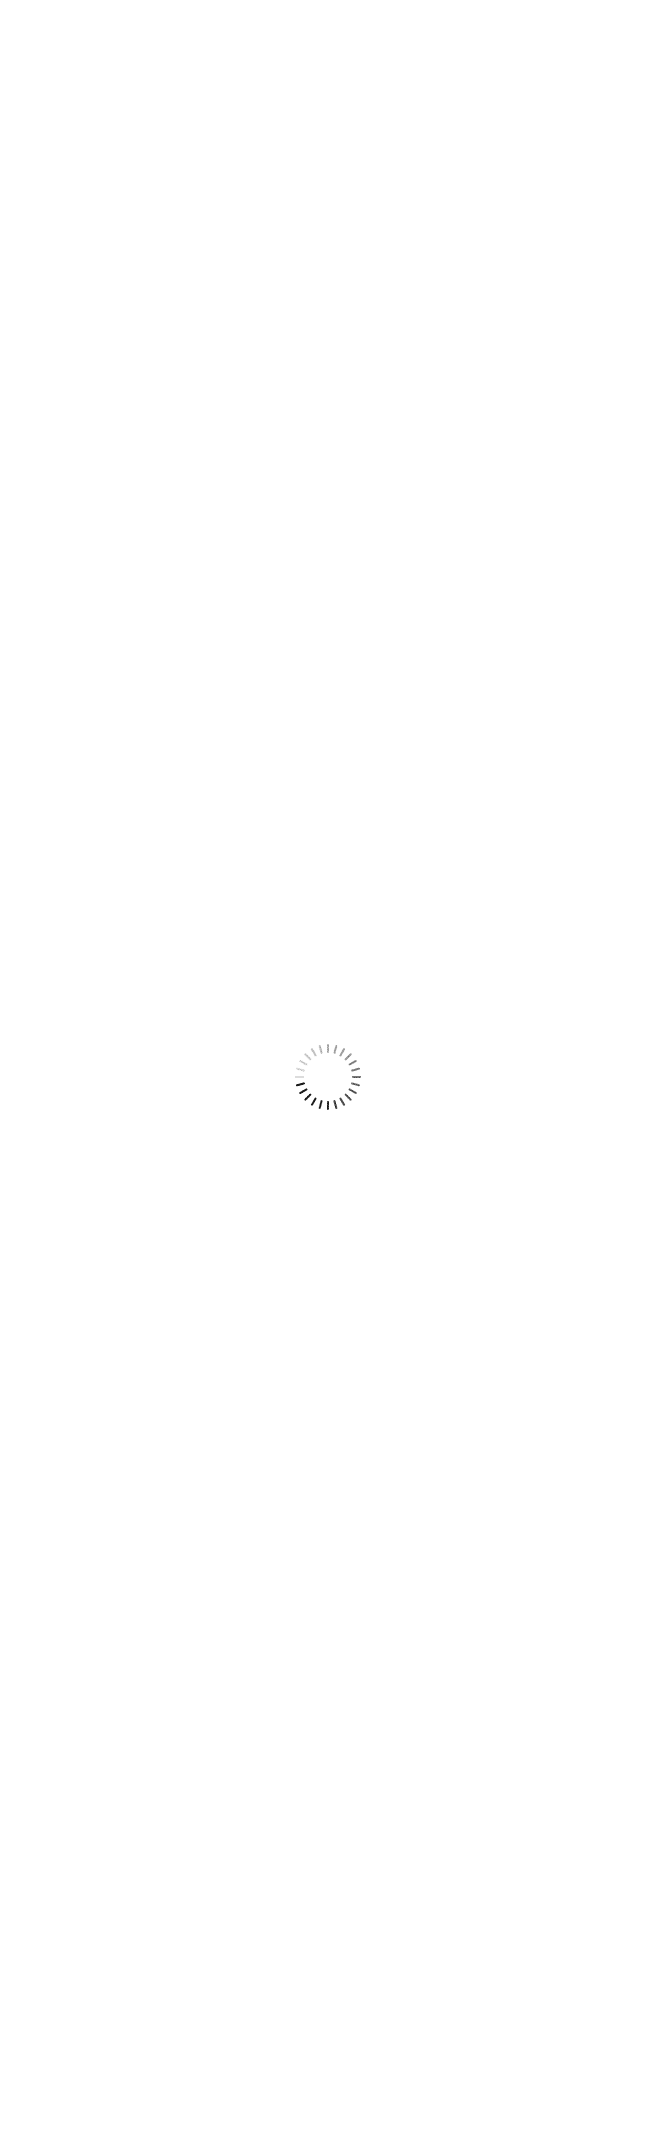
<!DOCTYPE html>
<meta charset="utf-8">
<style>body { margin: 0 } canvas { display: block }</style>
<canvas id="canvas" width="656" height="2154"></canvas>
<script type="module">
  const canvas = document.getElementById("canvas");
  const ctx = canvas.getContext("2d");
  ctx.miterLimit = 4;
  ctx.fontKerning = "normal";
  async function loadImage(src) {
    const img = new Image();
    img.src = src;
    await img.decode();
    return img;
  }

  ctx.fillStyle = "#ffffff";
  ctx.fillRect(0, 0, 656, 2154);
  ctx.drawImage(await loadImage("img1.png"), 295, 1044, 66, 66);
</script>
